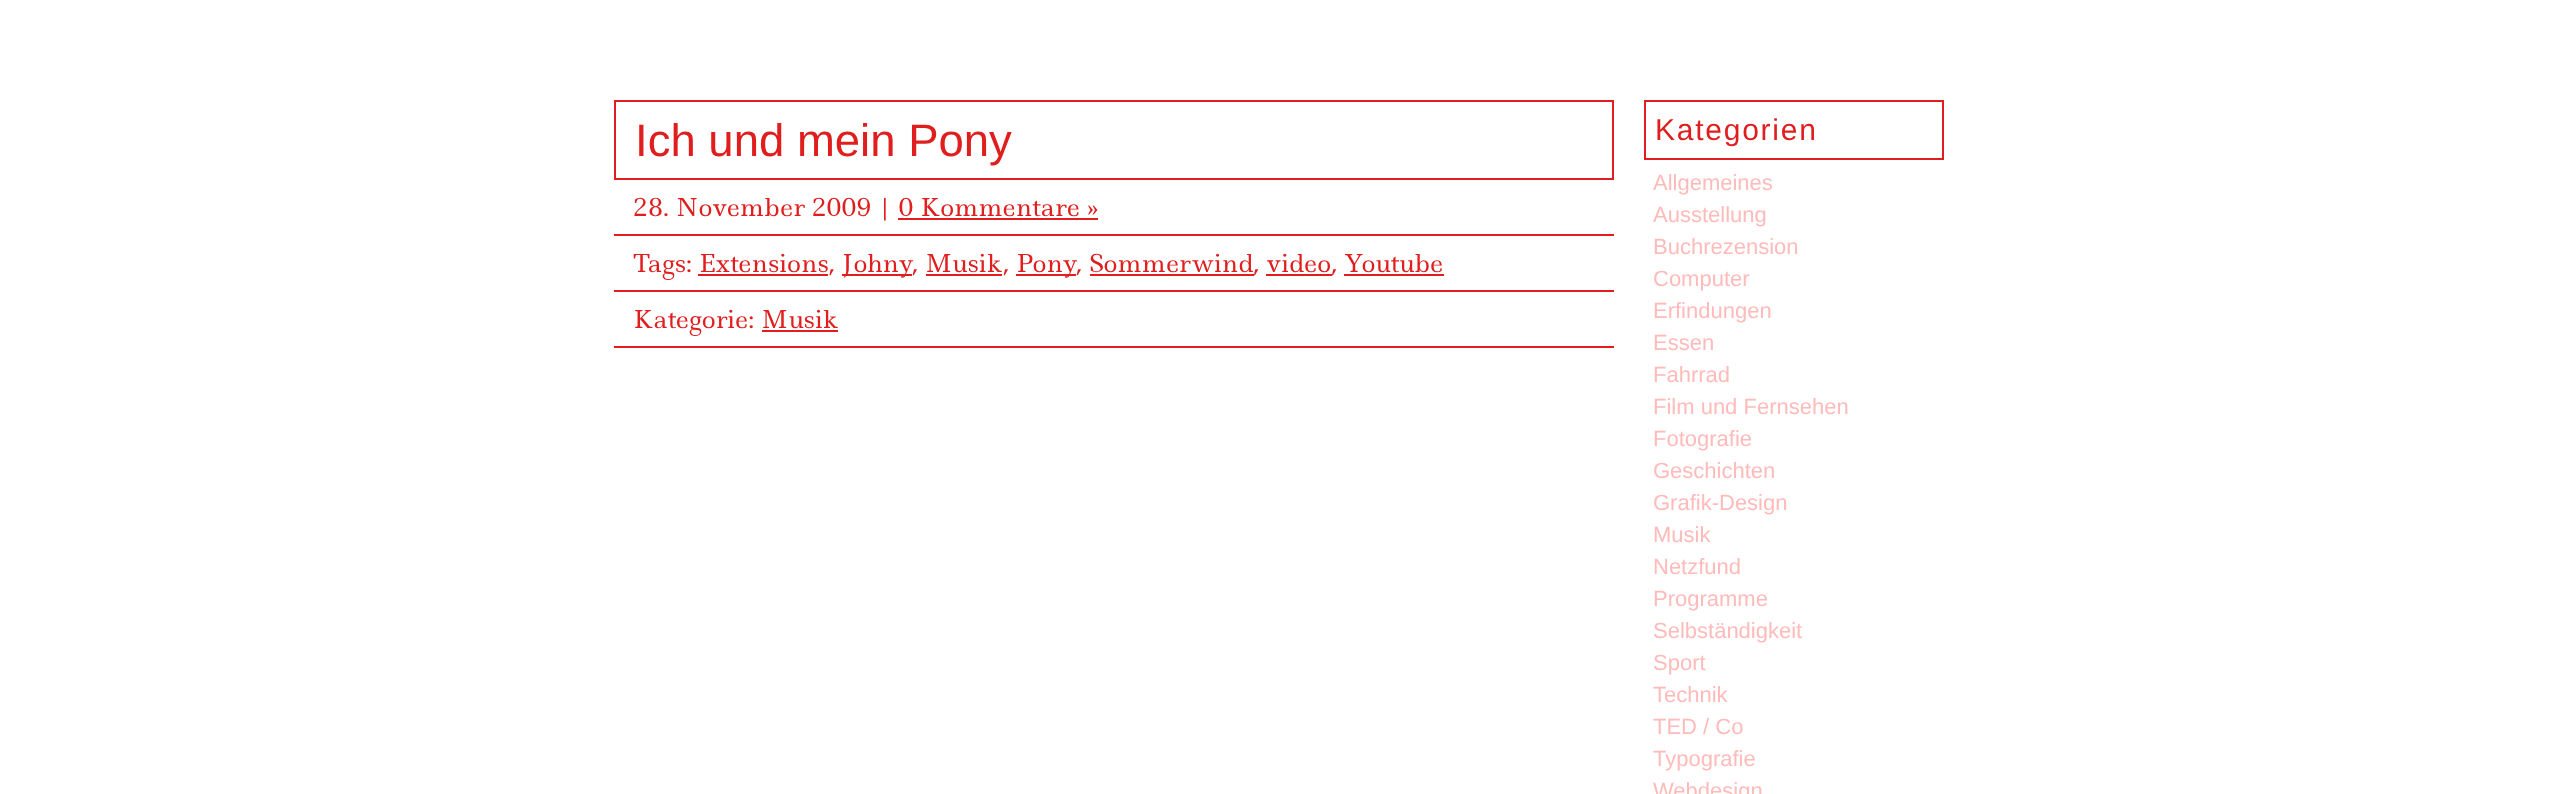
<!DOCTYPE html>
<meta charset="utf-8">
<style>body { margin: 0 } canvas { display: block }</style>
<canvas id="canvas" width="2556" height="794"></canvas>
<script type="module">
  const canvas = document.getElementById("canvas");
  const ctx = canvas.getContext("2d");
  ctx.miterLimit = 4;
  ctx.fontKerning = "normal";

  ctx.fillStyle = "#ffffff";
  ctx.fillRect(0, 0, 2556, 794);
  ctx.strokeStyle = "#e11e1e";
  ctx.lineWidth = 2;
  ctx.strokeRect(615, 101, 998, 78);
  ctx.font = "45.5px Liberation Sans";
  ctx.fillStyle = "#e11e1e";
  ctx.fillText("Ich und mein Pony", 635, 156);
  ctx.fillRect(614, 234, 1000, 2);
  ctx.font = "24px Ledger";
  ctx.fillText("28. November 2009 | 0 Kommentare »", 633, 216);
  ctx.fillRect(898, 218, 200, 2);
  ctx.fillRect(614, 290, 1000, 2);
  ctx.fillText("Tags: Extensions,", 633, 272);
  ctx.fillRect(842, 274, 70, 2);
  ctx.fillText("Johny", 842, 272);
  ctx.fillText(", Musik", 912, 272);
  ctx.fillText(",", 1003, 272);
  ctx.fillRect(1016, 274, 60, 2);
  ctx.fillText("Pony", 1016, 272);
  ctx.fillText(", Sommerwind, video, Youtube", 1076, 272);
  ctx.fillRect(698, 274, 130, 2);
  ctx.fillRect(926, 274, 76, 2);
  ctx.fillRect(1090, 274, 164, 2);
  ctx.fillRect(1266, 274, 66, 2);
  ctx.fillRect(1344, 274, 100, 2);
  ctx.fillRect(614, 346, 1000, 2);
  ctx.fillText("Kategorie: Musik", 633, 328);
  ctx.fillRect(762, 330, 76, 2);
  ctx.strokeRect(1645, 101, 298, 58);
  ctx.letterSpacing = "1.75px";
  ctx.font = "30px Liberation Sans";
  ctx.fillText("Kategorien", 1655, 140);
  ctx.letterSpacing = "0px";
  ctx.font = "22px Liberation Sans";
  ctx.fillStyle = "#ffbaba";
  ctx.fillText("Allgemeines", 1653, 190);
  ctx.fillText("Ausstellung", 1653, 222);
  ctx.fillText("Buchrezension", 1653, 254);
  ctx.fillText("Computer", 1653, 286);
  ctx.fillText("Erfindungen", 1653, 318);
  ctx.fillText("Essen", 1653, 350);
  ctx.fillText("Fahrrad", 1653, 382);
  ctx.fillText("Film und Fernsehen", 1653, 414);
  ctx.fillText("Fotografie", 1653, 446);
  ctx.fillText("Geschichten", 1653, 478);
  ctx.fillText("Grafik-Design", 1653, 510);
  ctx.fillText("Musik", 1653, 542);
  ctx.fillText("Netzfund", 1653, 574);
  ctx.fillText("Programme", 1653, 606);
  ctx.fillText("Selbständigkeit", 1653, 638);
  ctx.fillText("Sport", 1653, 670);
  ctx.fillText("Technik", 1653, 702);
  ctx.fillText("TED / Co", 1653, 734);
  ctx.fillText("Typografie", 1653, 766);
  ctx.fillText("Webdesign", 1653, 798);
</script>
